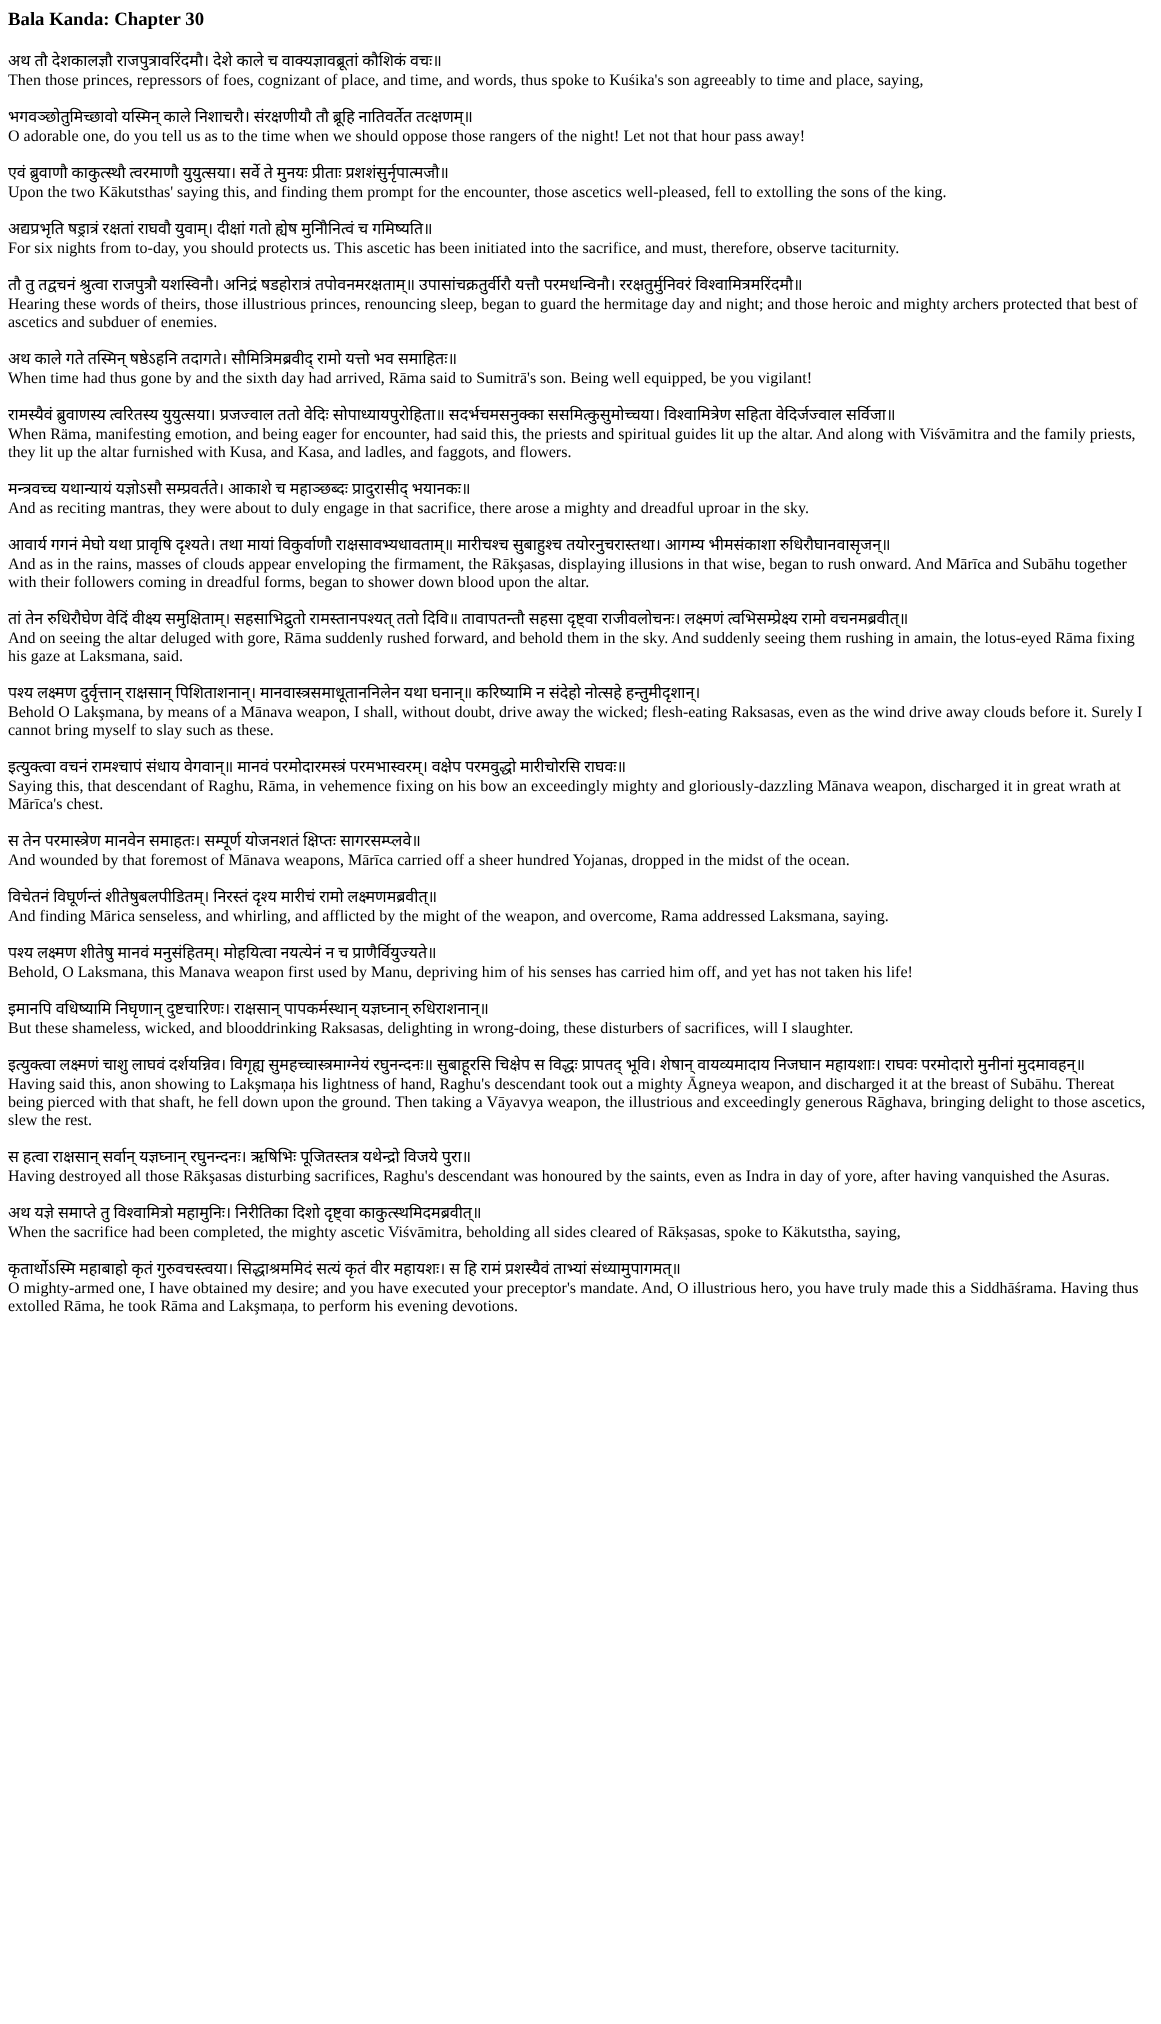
<!DOCTYPE html>
<meta charset="utf-8">
<style>body { margin: 0 } canvas { display: block }</style>
<canvas id="canvas" width="1161" height="2024"></canvas>
<script type="module">
  const canvas = document.getElementById("canvas");
  const ctx = canvas.getContext("2d");
  ctx.miterLimit = 4;
  ctx.fontKerning = "normal";

  ctx.fillStyle = "#ffffff";
  ctx.fillRect(0, 0, 1161, 2024);
  ctx.font = "bold 18.75px Liberation Serif";
  ctx.fillStyle = "#000000";
  ctx.fillText("Bala Kanda: Chapter 30", 8, 25);
  ctx.wordSpacing = "-0.2px";
  ctx.font = "16px Noto Sans";
  ctx.fillText("अथ तौ देशकालज्ञौ राजपुत्रावरिंदमौ। देशे काले च वाक्यज्ञावब्रूतां कौशिकं वचः॥", 8, 66);
  ctx.wordSpacing = "0px";
  ctx.font = "16px Liberation Serif";
  ctx.fillText("Then those princes, repressors of foes, cognizant of place, and time, and words, thus spoke to Kuśika's son agreeably to time and place, saying,", 8, 85);
  ctx.wordSpacing = "-0.2px";
  ctx.font = "16px Noto Sans";
  ctx.fillText("भगवञ्छोतुमिच्छावो यस्मिन् काले निशाचरौ। संरक्षणीयौ तौ ब्रूहि नातिवर्तेत तत्क्षणम्॥", 8, 122);
  ctx.wordSpacing = "0px";
  ctx.font = "16px Liberation Serif";
  ctx.fillText("O adorable one, do you tell us as to the time when we should oppose those rangers of the night! Let not that hour pass away!", 8, 141);
  ctx.wordSpacing = "-0.2px";
  ctx.font = "16px Noto Sans";
  ctx.fillText("एवं ब्रुवाणौ काकुत्स्थौ त्वरमाणौ युयुत्सया। सर्वे ते मुनयः प्रीताः प्रशशंसुर्नृपात्मजौ॥", 8, 178);
  ctx.wordSpacing = "0px";
  ctx.font = "16px Liberation Serif";
  ctx.fillText("Upon the two Kākutsthas' saying this, and finding them prompt for the encounter, those ascetics well-pleased, fell to extolling the sons of the king.", 8, 197);
  ctx.wordSpacing = "-0.2px";
  ctx.font = "16px Noto Sans";
  ctx.fillText("अद्यप्रभृति षड्रात्रं रक्षतां राघवौ युवाम्। दीक्षां गतो ह्येष मुनिौनित्वं च गमिष्यति॥", 8, 234);
  ctx.wordSpacing = "0px";
  ctx.font = "16px Liberation Serif";
  ctx.fillText("For six nights from to-day, you should protects us. This ascetic has been initiated into the sacrifice, and must, therefore, observe taciturnity.", 8, 253);
  ctx.wordSpacing = "-0.2px";
  ctx.font = "16px Noto Sans";
  ctx.fillText("तौ तु तद्वचनं श्रुत्वा राजपुत्रौ यशस्विनौ। अनिद्रं षडहोरात्रं तपोवनमरक्षताम्॥ उपासांचक्रतुर्वीरौ यत्तौ परमधन्विनौ। ररक्षतुर्मुनिवरं विश्वामित्रमरिंदमौ॥", 8, 290);
  ctx.wordSpacing = "0px";
  ctx.font = "16px Liberation Serif";
  ctx.fillText("Hearing these words of theirs, those illustrious princes, renouncing sleep, began to guard the hermitage day and night; and those heroic and mighty archers protected that best of", 8, 309);
  ctx.fillText("ascetics and subduer of enemies.", 8, 327);
  ctx.wordSpacing = "-0.2px";
  ctx.font = "16px Noto Sans";
  ctx.fillText("अथ काले गते तस्मिन् षष्ठेऽहनि तदागते। सौमित्रिमब्रवीद् रामो यत्तो भव समाहितः॥", 8, 364);
  ctx.wordSpacing = "0px";
  ctx.font = "16px Liberation Serif";
  ctx.fillText("When time had thus gone by and the sixth day had arrived, Rāma said to Sumitrā's son. Being well equipped, be you vigilant!", 8, 383);
  ctx.wordSpacing = "-0.2px";
  ctx.font = "16px Noto Sans";
  ctx.fillText("रामस्यैवं ब्रुवाणस्य त्वरितस्य युयुत्सया। प्रजज्वाल ततो वेदिः सोपाध्यायपुरोहिता॥ सदर्भचमसनुक्का ससमित्कुसुमोच्चया। विश्वामित्रेण सहिता वेदिर्जज्वाल सर्विजा॥", 8, 420);
  ctx.wordSpacing = "0px";
  ctx.font = "16px Liberation Serif";
  ctx.fillText("When Räma, manifesting emotion, and being eager for encounter, had said this, the priests and spiritual guides lit up the altar. And along with Viśvāmitra and the family priests,", 8, 439);
  ctx.fillText("they lit up the altar furnished with Kusa, and Kasa, and ladles, and faggots, and flowers.", 8, 457);
  ctx.wordSpacing = "-0.2px";
  ctx.font = "16px Noto Sans";
  ctx.fillText("मन्त्रवच्च यथान्यायं यज्ञोऽसौ सम्प्रवर्तते। आकाशे च महाञ्छब्दः प्रादुरासीद् भयानकः॥", 8, 494);
  ctx.wordSpacing = "0px";
  ctx.font = "16px Liberation Serif";
  ctx.fillText("And as reciting mantras, they were about to duly engage in that sacrifice, there arose a mighty and dreadful uproar in the sky.", 8, 513);
  ctx.wordSpacing = "-0.2px";
  ctx.font = "16px Noto Sans";
  ctx.fillText("आवार्य गगनं मेघो यथा प्रावृषि दृश्यते। तथा मायां विकुर्वाणौ राक्षसावभ्यधावताम्॥ मारीचश्च सुबाहुश्च तयोरनुचरास्तथा। आगम्य भीमसंकाशा रुधिरौघानवासृजन्॥", 8, 550);
  ctx.wordSpacing = "0px";
  ctx.font = "16px Liberation Serif";
  ctx.fillText("And as in the rains, masses of clouds appear enveloping the firmament, the Rākşasas, displaying illusions in that wise, began to rush onward. And Mārīca and Subāhu together", 8, 569);
  ctx.fillText("with their followers coming in dreadful forms, began to shower down blood upon the altar.", 8, 587);
  ctx.wordSpacing = "-0.2px";
  ctx.font = "16px Noto Sans";
  ctx.fillText("तां तेन रुधिरौघेण वेदिं वीक्ष्य समुक्षिताम्। सहसाभिद्रुतो रामस्तानपश्यत् ततो दिवि॥ तावापतन्तौ सहसा दृष्ट्वा राजीवलोचनः। लक्ष्मणं त्वभिसम्प्रेक्ष्य रामो वचनमब्रवीत्॥", 8, 624);
  ctx.wordSpacing = "0px";
  ctx.font = "16px Liberation Serif";
  ctx.fillText("And on seeing the altar deluged with gore, Rāma suddenly rushed forward, and behold them in the sky. And suddenly seeing them rushing in amain, the lotus-eyed Rāma fixing", 8, 643);
  ctx.fillText("his gaze at Laksmana, said.", 8, 661);
  ctx.wordSpacing = "-0.2px";
  ctx.font = "16px Noto Sans";
  ctx.fillText("पश्य लक्ष्मण दुर्वृत्तान् राक्षसान् पिशिताशनान्। मानवास्त्रसमाधूताननिलेन यथा घनान्॥ करिष्यामि न संदेहो नोत्सहे हन्तुमीदृशान्।", 8, 698);
  ctx.wordSpacing = "0px";
  ctx.font = "16px Liberation Serif";
  ctx.fillText("Behold O Lakşmana, by means of a Mānava weapon, I shall, without doubt, drive away the wicked; flesh-eating Raksasas, even as the wind drive away clouds before it. Surely I", 8, 717);
  ctx.fillText("cannot bring myself to slay such as these.", 8, 735);
  ctx.wordSpacing = "-0.2px";
  ctx.font = "16px Noto Sans";
  ctx.fillText("इत्युक्त्वा वचनं रामश्चापं संधाय वेगवान्॥ मानवं परमोदारमस्त्रं परमभास्वरम्। वक्षेप परमवुद्धो मारीचोरसि राघवः॥", 8, 772);
  ctx.wordSpacing = "0px";
  ctx.font = "16px Liberation Serif";
  ctx.fillText("Saying this, that descendant of Raghu, Rāma, in vehemence fixing on his bow an exceedingly mighty and gloriously-dazzling Mānava weapon, discharged it in great wrath at", 8, 791);
  ctx.fillText("Mārīca's chest.", 8, 809);
  ctx.wordSpacing = "-0.2px";
  ctx.font = "16px Noto Sans";
  ctx.fillText("स तेन परमास्त्रेण मानवेन समाहतः। सम्पूर्ण योजनशतं क्षिप्तः सागरसम्प्लवे॥", 8, 846);
  ctx.wordSpacing = "0px";
  ctx.font = "16px Liberation Serif";
  ctx.fillText("And wounded by that foremost of Mānava weapons, Mārīca carried off a sheer hundred Yojanas, dropped in the midst of the ocean.", 8, 865);
  ctx.wordSpacing = "-0.2px";
  ctx.font = "16px Noto Sans";
  ctx.fillText("विचेतनं विघूर्णन्तं शीतेषुबलपीडितम्। निरस्तं दृश्य मारीचं रामो लक्ष्मणमब्रवीत्॥", 8, 902);
  ctx.wordSpacing = "0px";
  ctx.font = "16px Liberation Serif";
  ctx.fillText("And finding Mārica senseless, and whirling, and afflicted by the might of the weapon, and overcome, Rama addressed Laksmana, saying.", 8, 921);
  ctx.wordSpacing = "-0.2px";
  ctx.font = "16px Noto Sans";
  ctx.fillText("पश्य लक्ष्मण शीतेषु मानवं मनुसंहितम्। मोहयित्वा नयत्येनं न च प्राणैर्वियुज्यते॥", 8, 958);
  ctx.wordSpacing = "0px";
  ctx.font = "16px Liberation Serif";
  ctx.fillText("Behold, O Laksmana, this Manava weapon first used by Manu, depriving him of his senses has carried him off, and yet has not taken his life!", 8, 977);
  ctx.wordSpacing = "-0.2px";
  ctx.font = "16px Noto Sans";
  ctx.fillText("इमानपि वधिष्यामि निघृणान् दुष्टचारिणः। राक्षसान् पापकर्मस्थान् यज्ञघ्नान् रुधिराशनान्॥", 8, 1014);
  ctx.wordSpacing = "0px";
  ctx.font = "16px Liberation Serif";
  ctx.fillText("But these shameless, wicked, and blooddrinking Raksasas, delighting in wrong-doing, these disturbers of sacrifices, will I slaughter.", 8, 1033);
  ctx.wordSpacing = "-0.2px";
  ctx.font = "16px Noto Sans";
  ctx.fillText("इत्युक्त्वा लक्ष्मणं चाशु लाघवं दर्शयन्निव। विगृह्य सुमहच्चास्त्रमाग्नेयं रघुनन्दनः॥ सुबाहूरसि चिक्षेप स विद्धः प्रापतद् भूवि। शेषान् वायव्यमादाय निजघान महायशाः। राघवः परमोदारो मुनीनां मुदमावहन्॥", 8, 1070);
  ctx.wordSpacing = "0px";
  ctx.font = "16px Liberation Serif";
  ctx.fillText("Having said this, anon showing to Lakşmaņa his lightness of hand, Raghu's descendant took out a mighty Āgneya weapon, and discharged it at the breast of Subāhu. Thereat", 8, 1089);
  ctx.fillText("being pierced with that shaft, he fell down upon the ground. Then taking a Vāyavya weapon, the illustrious and exceedingly generous Rāghava, bringing delight to those ascetics,", 8, 1107);
  ctx.fillText("slew the rest.", 8, 1125);
  ctx.wordSpacing = "-0.2px";
  ctx.font = "16px Noto Sans";
  ctx.fillText("स हत्वा राक्षसान् सर्वान् यज्ञघ्नान् रघुनन्दनः। ऋषिभिः पूजितस्तत्र यथेन्द्रो विजये पुरा॥", 8, 1162);
  ctx.wordSpacing = "0px";
  ctx.font = "16px Liberation Serif";
  ctx.fillText("Having destroyed all those Rākşasas disturbing sacrifices, Raghu's descendant was honoured by the saints, even as Indra in day of yore, after having vanquished the Asuras.", 8, 1181);
  ctx.wordSpacing = "-0.2px";
  ctx.font = "16px Noto Sans";
  ctx.fillText("अथ यज्ञे समाप्ते तु विश्वामित्रो महामुनिः। निरीतिका दिशो दृष्ट्वा काकुत्स्थमिदमब्रवीत्॥", 8, 1218);
  ctx.wordSpacing = "0px";
  ctx.font = "16px Liberation Serif";
  ctx.fillText("When the sacrifice had been completed, the mighty ascetic Viśvāmitra, beholding all sides cleared of Rākṣasas, spoke to Käkutstha, saying,", 8, 1237);
  ctx.wordSpacing = "-0.2px";
  ctx.font = "16px Noto Sans";
  ctx.fillText("कृतार्थोऽस्मि महाबाहो कृतं गुरुवचस्त्वया। सिद्धाश्रममिदं सत्यं कृतं वीर महायशः। स हि रामं प्रशस्यैवं ताभ्यां संध्यामुपागमत्॥", 8, 1274);
  ctx.wordSpacing = "0px";
  ctx.font = "16px Liberation Serif";
  ctx.fillText("O mighty-armed one, I have obtained my desire; and you have executed your preceptor's mandate. And, O illustrious hero, you have truly made this a Siddhāśrama. Having thus", 8, 1293);
  ctx.fillText("extolled Rāma, he took Rāma and Lakşmaņa, to perform his evening devotions.", 8, 1311);
</script>
